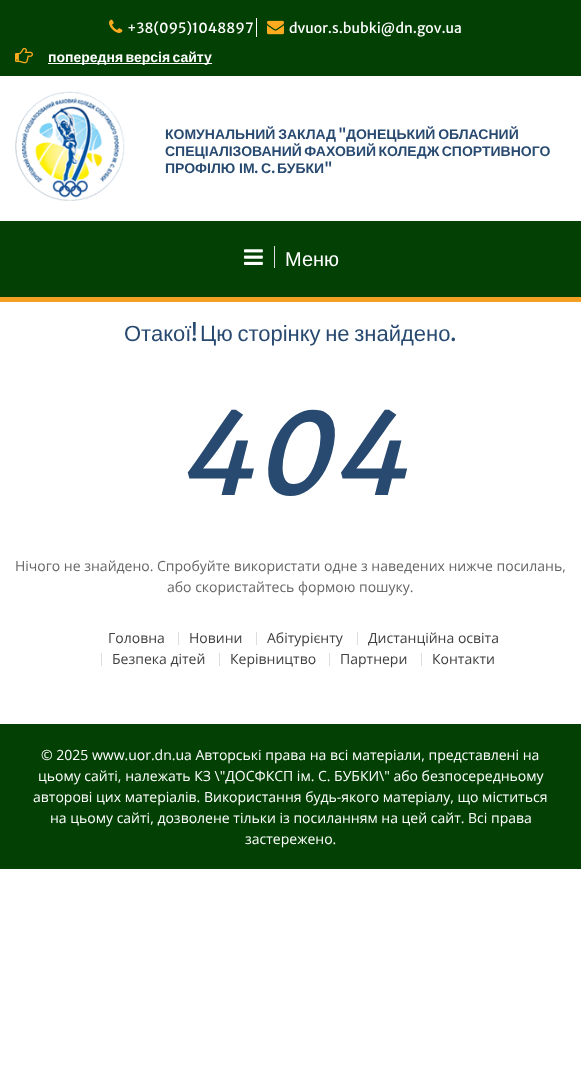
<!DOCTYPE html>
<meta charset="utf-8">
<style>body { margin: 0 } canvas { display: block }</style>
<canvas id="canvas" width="581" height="1076"></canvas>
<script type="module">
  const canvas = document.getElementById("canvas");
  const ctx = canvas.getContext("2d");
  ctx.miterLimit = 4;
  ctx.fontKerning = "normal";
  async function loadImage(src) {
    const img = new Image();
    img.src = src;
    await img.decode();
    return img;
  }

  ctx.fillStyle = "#ffffff";
  ctx.fillRect(0, 0, 581, 1076);
  ctx.fillStyle = "#024004";
  ctx.fillRect(0, 0, 581, 76);
  ctx.drawImage(await loadImage("img1.png"), 109, 19, 14, 14);
  ctx.font = "14px Merriweather Sans";
  ctx.fillStyle = "#ffffff";
  ctx.fillText("+38(095)1048897", 127, 33);
  ctx.fillRect(256, 18, 1, 19);
  ctx.drawImage(await loadImage("img2.png"), 267, 20, 17, 15);
  ctx.fillText("dvuor.s.bubki@dn.gov.ua", 289, 33);
  ctx.drawImage(await loadImage("img3.png"), 15, 47, 18, 17);
  ctx.fillRect(48, 63, 164, 1);
  ctx.wordSpacing = "-1.5px";
  ctx.font = "bold 14px Liberation Sans";
  ctx.fillText("попередня версія сайту", 48, 62);
  ctx.drawImage(await loadImage("img4.png"), 15, 91, 110, 110);
  ctx.wordSpacing = "-1px";
  ctx.fillStyle = "#294a70";
  ctx.fillText("КОМУНАЛЬНИЙ ЗАКЛАД", 165, 139);
  ctx.wordSpacing = "0px";
  ctx.font = "bold 14px Merriweather Sans";
  ctx.fillText("\"", 338, 139);
  ctx.wordSpacing = "-1px";
  ctx.font = "bold 14px Liberation Sans";
  ctx.fillText("ДОНЕЦЬКИЙ ОБЛАСНИЙ", 346, 139);
  ctx.wordSpacing = "-1.5px";
  ctx.fillText("СПЕЦІАЛІЗОВАНИЙ ФАХОВИЙ КОЛЕДЖ СПОРТИВНОГО", 165, 156);
  ctx.wordSpacing = "0px";
  ctx.fillText("ПРОФІЛЮ ІМ", 165, 173);
  ctx.font = "bold 14px Merriweather Sans";
  ctx.fillText(".", 254, 173);
  ctx.font = "bold 14px Liberation Sans";
  ctx.fillText("С", 261, 173);
  ctx.font = "bold 14px Merriweather Sans";
  ctx.fillText(".", 271, 173);
  ctx.font = "bold 14px Liberation Sans";
  ctx.fillText("БУБКИ", 277, 173);
  ctx.font = "bold 14px Merriweather Sans";
  ctx.fillText("\"", 324, 173);
  ctx.fillStyle = "#024004";
  ctx.fillRect(0, 221, 581, 76);
  ctx.fillStyle = "#f4a024";
  ctx.fillRect(0, 297, 581, 5);
  ctx.fillStyle = "#dddddd";
  ctx.fillRect(274, 246, 1, 22);
  ctx.drawImage(await loadImage("img5.png"), 244, 249, 19, 16);
  ctx.font = "20px Liberation Sans";
  ctx.fillStyle = "#ffffff";
  ctx.fillText("Меню", 285, 266);
  ctx.font = "22px Liberation Sans";
  ctx.fillStyle = "#294a70";
  ctx.fillText("Отакої", 124, 341);
  ctx.font = "22px Merriweather Sans";
  ctx.fillText("!", 191, 341);
  ctx.wordSpacing = "-1.5px";
  ctx.font = "22px Liberation Sans";
  ctx.fillText("Цю сторінку не знайдено", 200, 341);
  ctx.wordSpacing = "0px";
  ctx.font = "22px Merriweather Sans";
  ctx.fillText(".", 450, 341);
  ctx.font = "italic 113px Merriweather Sans";
  ctx.fillText("404", 176, 495);
  ctx.font = "14px Open Sans";
  ctx.fillStyle = "#666666";
  ctx.fillText("Нічого не знайдено. Спробуйте використати одне з наведених нижче посилань,", 15, 571);
  ctx.fillText("або скористайтесь формою пошуку.", 167, 592);
  ctx.fillStyle = "#404040";
  ctx.fillText("Головна", 108, 643);
  ctx.fillStyle = "#dddddd";
  ctx.fillRect(178, 632, 1, 13);
  ctx.fillStyle = "#404040";
  ctx.fillText("Новини", 189, 643);
  ctx.fillStyle = "#dddddd";
  ctx.fillRect(256, 632, 1, 13);
  ctx.fillStyle = "#404040";
  ctx.fillText("Абітурієнту", 267, 643);
  ctx.fillStyle = "#dddddd";
  ctx.fillRect(357, 632, 1, 13);
  ctx.fillStyle = "#404040";
  ctx.fillText("Дистанційна освіта", 368, 643);
  ctx.fillStyle = "#dddddd";
  ctx.fillRect(101, 653, 1, 13);
  ctx.fillStyle = "#404040";
  ctx.fillText("Безпека дітей", 112, 664);
  ctx.fillStyle = "#dddddd";
  ctx.fillRect(219, 653, 1, 13);
  ctx.fillStyle = "#404040";
  ctx.fillText("Керівництво", 230, 664);
  ctx.fillStyle = "#dddddd";
  ctx.fillRect(329, 653, 1, 13);
  ctx.fillStyle = "#404040";
  ctx.fillText("Партнери", 340, 664);
  ctx.fillStyle = "#dddddd";
  ctx.fillRect(421, 653, 1, 13);
  ctx.fillStyle = "#404040";
  ctx.fillText("Контакти", 432, 664);
  ctx.fillStyle = "#024004";
  ctx.fillRect(0, 724, 581, 145);
  ctx.fillStyle = "#ffffff";
  ctx.fillText("© 2025 www.uor.dn.ua Авторські права на всі матеріали, представлені на", 41, 760);
  ctx.fillText("цьому сайті, належать КЗ \\\"ДОСФКСП ім. С. БУБКИ\\\" або безпосередньому", 38, 781);
  ctx.fillText("авторові цих матеріалів. Використання будь-якого матеріалу, що міститься", 33, 802);
  ctx.fillText("на цьому сайті, дозволене тільки із посиланням на цей сайт. Всі права", 50, 823);
  ctx.fillText("застережено.", 245, 844);
</script>
